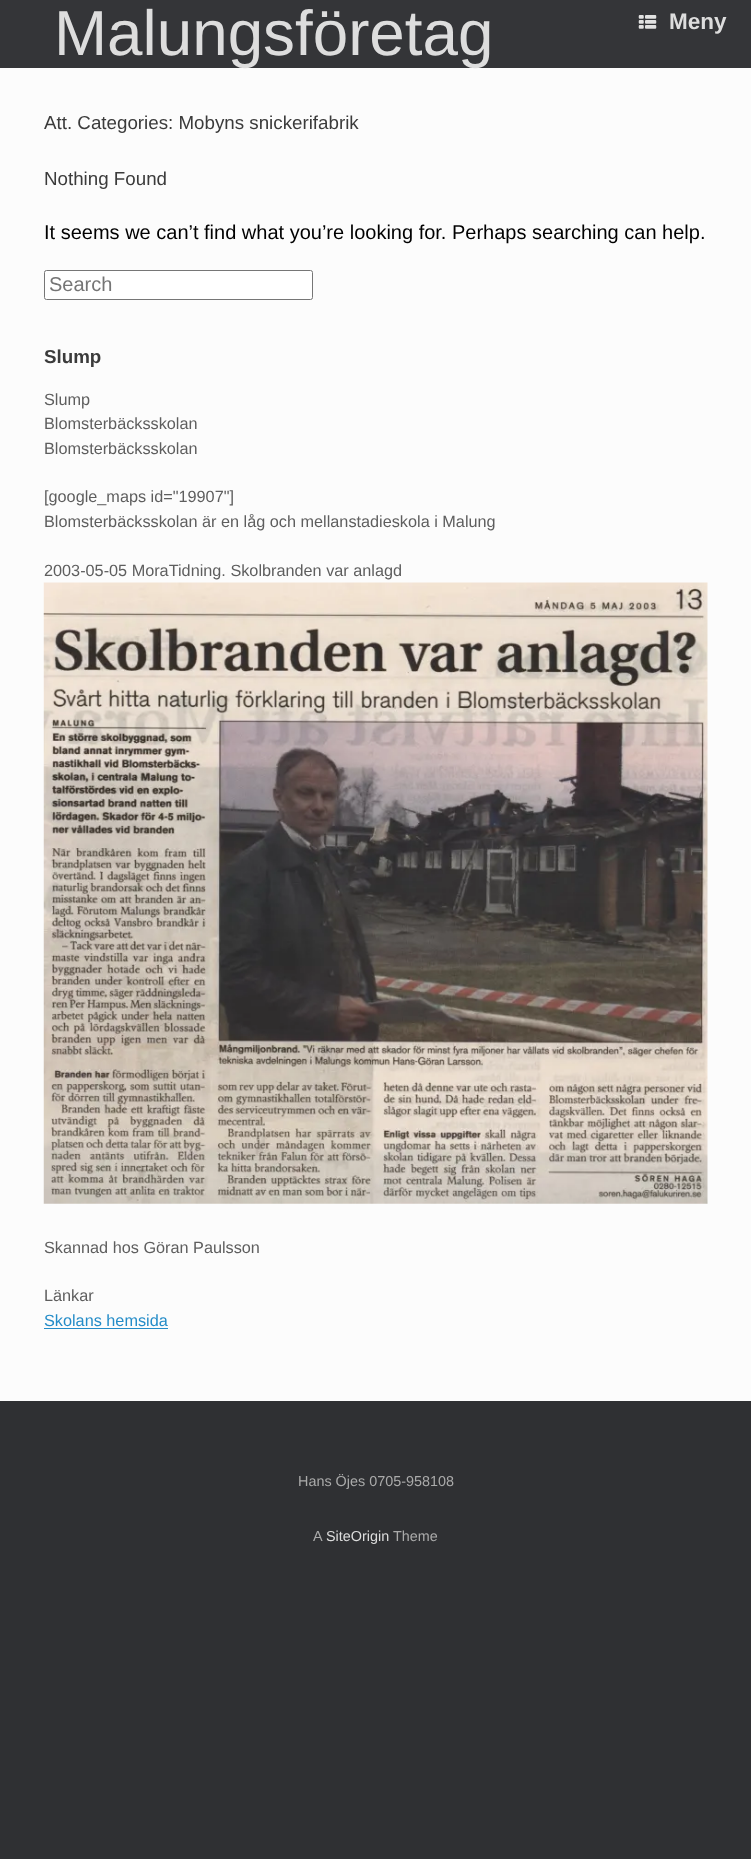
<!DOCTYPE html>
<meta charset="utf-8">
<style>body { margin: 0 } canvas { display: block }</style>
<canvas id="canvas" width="751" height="1859"></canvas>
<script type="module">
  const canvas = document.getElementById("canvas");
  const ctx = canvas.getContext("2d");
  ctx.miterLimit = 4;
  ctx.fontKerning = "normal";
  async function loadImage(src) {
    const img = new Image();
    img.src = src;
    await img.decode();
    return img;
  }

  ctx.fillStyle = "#2f3033";
  ctx.fillRect(0, 0, 751, 1859);
  ctx.fillStyle = "#343538";
  ctx.fillRect(0, 0, 751, 68);
  ctx.fillStyle = "#fcfcfc";
  ctx.fillRect(0, 68, 751, 1333);
  ctx.font = "63.75px Liberation Sans";
  ctx.fillStyle = "#dddddd";
  ctx.fillText("Malungsföretag", 54, 55);
  ctx.drawImage(await loadImage("img1.png"), 638, 15, 19, 14);
  ctx.font = "bold 22.5px Liberation Sans";
  ctx.fillText("Meny", 669, 29);
  ctx.font = "18.75px Liberation Sans";
  ctx.fillStyle = "#3b3b3b";
  ctx.fillText("Att. Categories: Mobyns snickerifabrik", 44, 129);
  ctx.fillText("Nothing Found", 44, 185);
  ctx.font = "20px Liberation Sans";
  ctx.fillStyle = "#000000";
  ctx.fillText("It seems we can’t find what you’re looking for. Perhaps searching can help.", 44, 239);
  ctx.fillStyle = "#ffffff";
  ctx.beginPath();
  ctx.roundRect(44.5, 270.5, 268, 29, 2);
  ctx.fill();
  ctx.strokeStyle = "#767676";
  ctx.stroke();
  ctx.fillStyle = "#757575";
  ctx.fillText("Search", 49, 291);
  ctx.font = "bold 18.75px Liberation Sans";
  ctx.fillStyle = "#3b3b3b";
  ctx.fillText("Slump", 44, 363);
  ctx.font = "16.25px Liberation Sans";
  ctx.fillStyle = "#5e5e5e";
  ctx.fillText("Slump", 44, 405);
  ctx.fillText("Blomsterbäcksskolan", 44, 429);
  ctx.fillText("Blomsterbäcksskolan", 44, 454);
  ctx.fillText("[google_maps id=\"19907\"]", 44, 502);
  ctx.fillText("Blomsterbäcksskolan är en låg och mellanstadieskola i Malung", 44, 527);
  ctx.fillText("2003-05-05 MoraTidning. Skolbranden var anlagd", 44, 576);
  ctx.drawImage(await loadImage("img2.png"), 43, 582, 665, 622);
  ctx.fillText("Skannad hos Göran Paulsson", 44, 1253);
  ctx.fillText("Länkar", 44, 1301);
  ctx.fillStyle = "#248cc8";
  ctx.fillText("Skolans hemsida", 44, 1326);
  ctx.fillRect(44, 1328, 124, 1);
  ctx.font = "14.4px Liberation Sans";
  ctx.fillStyle = "#aaaaaa";
  ctx.fillText("Hans Öjes 0705-958108", 298, 1486);
  ctx.fillText("A", 313, 1541);
  ctx.fillStyle = "#dddddd";
  ctx.fillText("SiteOrigin", 326, 1541);
  ctx.fillStyle = "#aaaaaa";
  ctx.fillText("Theme", 393, 1541);
</script>
